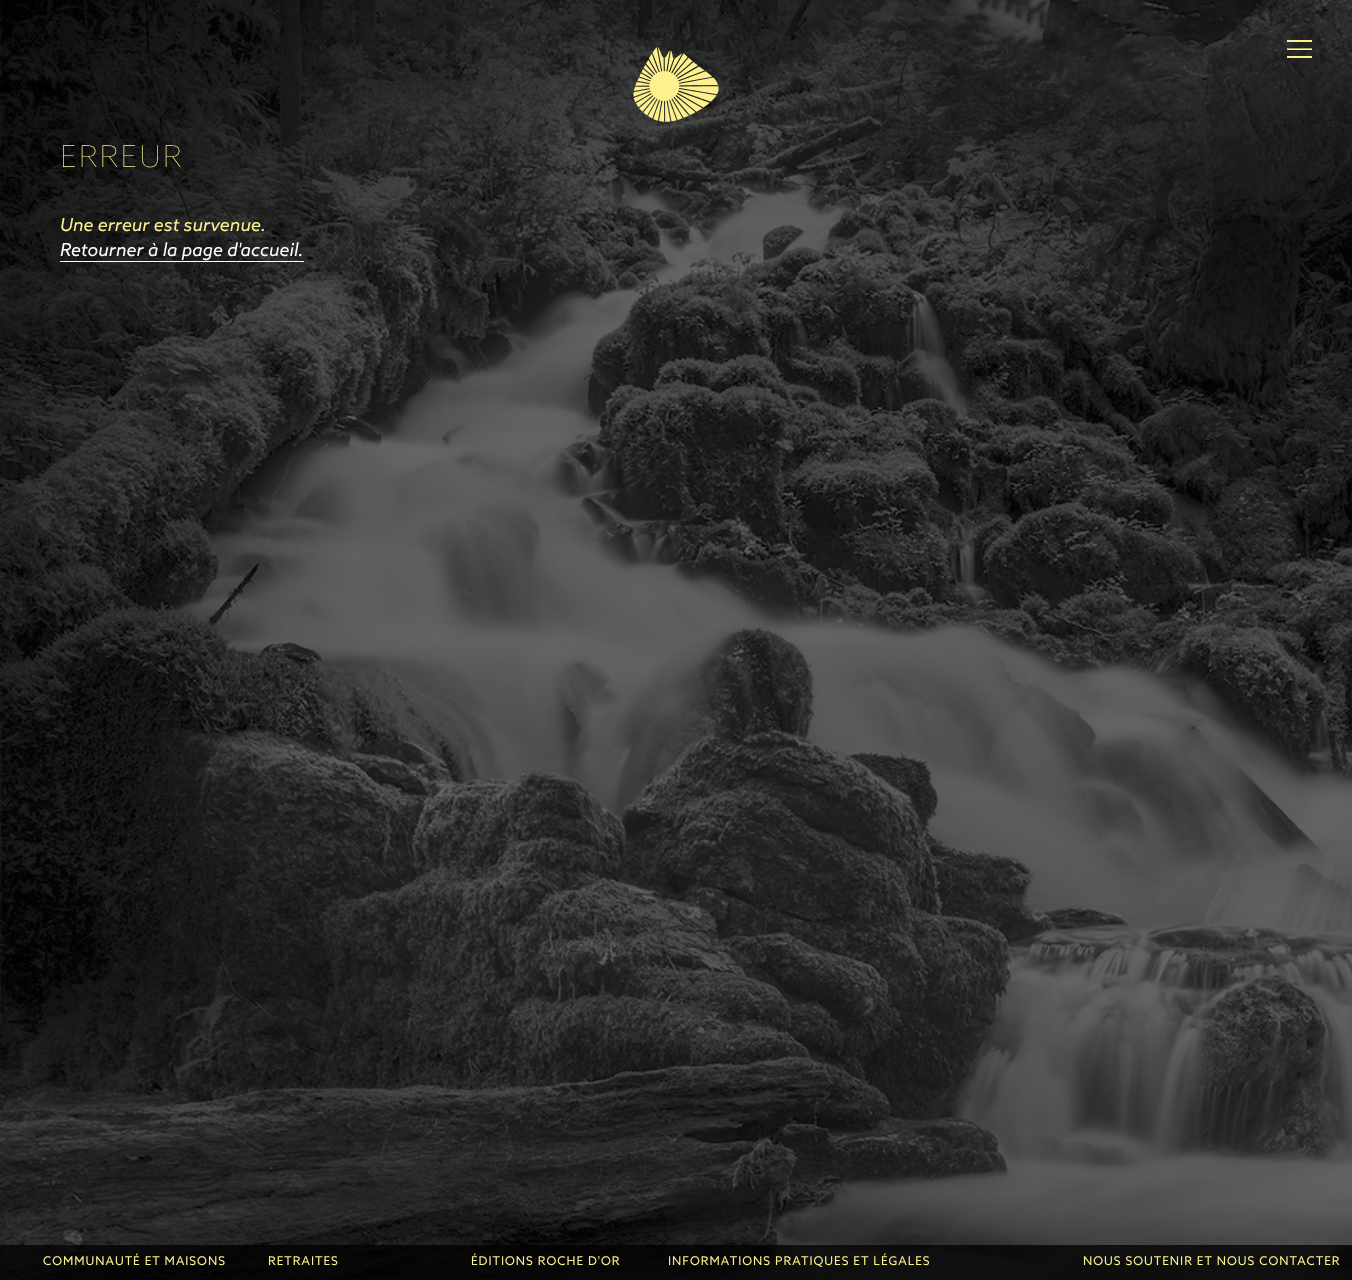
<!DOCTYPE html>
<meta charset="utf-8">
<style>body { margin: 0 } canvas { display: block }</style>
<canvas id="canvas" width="1352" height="1280"></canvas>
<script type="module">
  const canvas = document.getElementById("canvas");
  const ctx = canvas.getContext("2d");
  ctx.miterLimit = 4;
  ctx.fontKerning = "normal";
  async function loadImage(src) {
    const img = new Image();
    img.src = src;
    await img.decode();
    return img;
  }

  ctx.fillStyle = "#ffffff";
  ctx.fillRect(0, 0, 1352, 1280);
  ctx.drawImage(await loadImage("img1.png"), 0, 0, 1352, 1280);
  ctx.drawImage(await loadImage("img2.png"), 633, 47, 86, 75);
  ctx.drawImage(await loadImage("img3.png"), 1287, 40, 25, 18);
  ctx.letterSpacing = "2px";
  ctx.font = "100 30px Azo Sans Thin";
  ctx.fillStyle = "#faf28e";
  ctx.fillText("ERREUR", 60, 167);
  ctx.letterSpacing = "0px";
  ctx.font = "italic 18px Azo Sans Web";
  ctx.fillText("Une erreur est survenue.", 60, 231);
  ctx.fillStyle = "#ffffff";
  ctx.fillText("Retourner à la page d'accueil.", 60, 256);
  ctx.fillRect(60, 261, 244, 1);
  ctx.fillStyle = "rgba(0, 0, 0, 0.5)";
  ctx.fillRect(0, 1245, 1352, 35);
  ctx.fillRect(0, 1245, 1352, 35);
  ctx.letterSpacing = "1px";
  ctx.font = "12px Azo Sans Web";
  ctx.fillStyle = "#faf28e";
  ctx.fillText("COMMUNAUTÉ ET MAISONS", 43, 1265);
  ctx.fillText("RETRAITES", 268, 1265);
  ctx.fillText("ÉDITIONS ROCHE D'OR", 471, 1265);
  ctx.fillText("INFORMATIONS PRATIQUES ET LÉGALES", 668, 1265);
  ctx.fillText("NOUS SOUTENIR ET NOUS CONTACTER", 1083, 1265);
</script>
